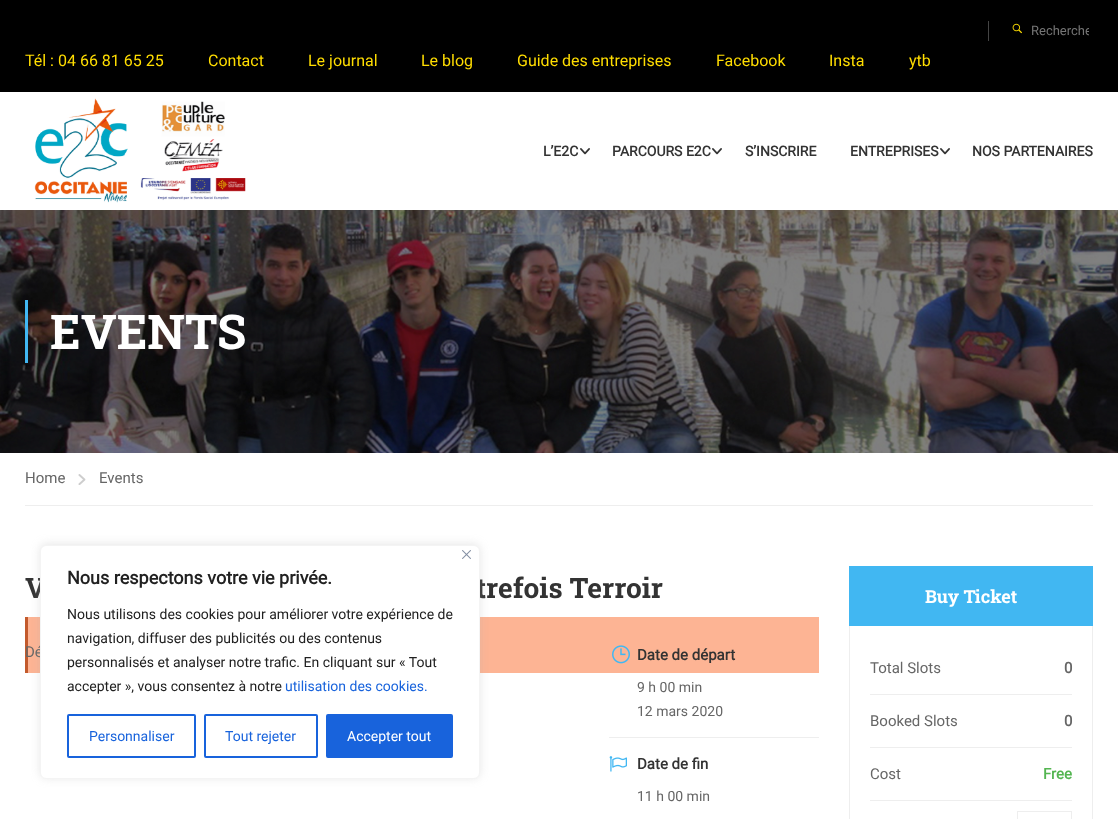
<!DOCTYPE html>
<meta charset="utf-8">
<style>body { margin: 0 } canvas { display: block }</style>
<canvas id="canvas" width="1118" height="819"></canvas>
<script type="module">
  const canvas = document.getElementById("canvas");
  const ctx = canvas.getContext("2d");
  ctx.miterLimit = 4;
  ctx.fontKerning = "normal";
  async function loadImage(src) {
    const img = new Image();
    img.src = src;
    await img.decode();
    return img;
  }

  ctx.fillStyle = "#ffffff";
  ctx.fillRect(0, 0, 1118, 819);
  ctx.fillStyle = "#000000";
  ctx.fillRect(0, 0, 1118, 92);
  ctx.fillStyle = "#444444";
  ctx.fillRect(988, 21, 1, 20);
  ctx.drawImage(await loadImage("img1.png"), 1012, 23, 10, 11);
  ctx.save();
  ctx.beginPath();
  ctx.rect(1031, 23, 58, 15);
  ctx.clip();
  ctx.font = "13px Roboto";
  ctx.fillStyle = "#757575";
  ctx.fillText("Recherche", 1031, 35);
  ctx.restore();
  ctx.font = "16px Roboto";
  ctx.fillStyle = "#ffdd00";
  ctx.fillText("Tél : 04 66 81 65 25", 25, 66);
  ctx.fillText("Contact", 208, 66);
  ctx.fillText("Le journal", 308, 66);
  ctx.fillText("Le blog", 421, 66);
  ctx.fillText("Guide des entreprises", 517, 66);
  ctx.fillText("Facebook", 716, 66);
  ctx.fillText("Insta", 829, 66);
  ctx.fillText("ytb", 909, 66);
  ctx.drawImage(await loadImage("img2.png"), 34, 98, 212, 105);
  ctx.font = "bold 14px Roboto";
  ctx.fillStyle = "#333333";
  ctx.fillText("L’E2C", 543, 156);
  ctx.drawImage(await loadImage("img3.png"), 580, 148, 10, 7);
  ctx.fillText("PARCOURS E2C", 612, 156);
  ctx.drawImage(await loadImage("img3.png"), 712, 148, 10, 7);
  ctx.fillText("S’INSCRIRE", 745, 156);
  ctx.fillText("ENTREPRISES", 850, 156);
  ctx.drawImage(await loadImage("img3.png"), 940, 148, 10, 7);
  ctx.fillText("NOS PARTENAIRES", 972, 156);
  ctx.drawImage(await loadImage("img4.png"), 0, 210, 1118, 243);
  ctx.fillStyle = "#41b7f2";
  ctx.fillRect(25, 300, 3, 63);
  ctx.font = "bold 48px Roboto Slab";
  ctx.fillStyle = "#ffffff";
  ctx.fillText("EVENTS", 50, 349);
  ctx.fillStyle = "#eeeeee";
  ctx.fillRect(25, 505, 1068, 1);
  ctx.font = "15px Roboto";
  ctx.fillStyle = "#666666";
  ctx.fillText("Home", 25, 483);
  ctx.drawImage(await loadImage("img5.png"), 78, 474, 8, 11);
  ctx.fillText("Events", 99, 483);
  ctx.font = "bold 28px Roboto Slab";
  ctx.fillStyle = "#333333";
  ctx.fillText("V", 25, 598);
  ctx.fillText("trefois Terroir", 476, 598);
  ctx.fillStyle = "#fdb494";
  ctx.fillRect(28, 617, 791, 56);
  ctx.fillStyle = "#c35a2c";
  ctx.fillRect(25, 617, 3, 56);
  ctx.font = "15px Roboto";
  ctx.fillStyle = "#666666";
  ctx.fillText("Dé", 25, 657);
  ctx.fillStyle = "#eeeeee";
  ctx.fillRect(609, 737, 210, 1);
  ctx.drawImage(await loadImage("img6.png"), 612, 645, 18, 19);
  ctx.font = "bold 15px Roboto";
  ctx.fillStyle = "#333333";
  ctx.fillText("Date de départ", 637, 660);
  ctx.font = "14px Roboto";
  ctx.fillStyle = "#666666";
  ctx.fillText("9 h 00 min", 637, 692);
  ctx.fillText("12 mars 2020", 637, 716);
  ctx.drawImage(await loadImage("img7.png"), 609, 756, 18, 16);
  ctx.font = "bold 15px Roboto";
  ctx.fillStyle = "#333333";
  ctx.fillText("Date de fin", 637, 769);
  ctx.font = "14px Roboto";
  ctx.fillStyle = "#666666";
  ctx.fillText("11 h 00 min", 637, 801);
  ctx.fillStyle = "#41b7f2";
  ctx.fillRect(849, 566, 244, 60);
  ctx.font = "bold 18px Roboto Slab";
  ctx.fillStyle = "#ffffff";
  ctx.fillText("Buy Ticket", 925, 603);
  ctx.fillStyle = "#eeeeee";
  ctx.fillRect(1092, 626, 1, 193);
  ctx.fillRect(849, 626, 1, 193);
  ctx.fillRect(870, 694, 202, 1);
  ctx.font = "15px Roboto";
  ctx.fillStyle = "#666666";
  ctx.fillText("Total Slots", 870, 673);
  ctx.font = "bold 15px Roboto";
  ctx.fillText("0", 1064, 673);
  ctx.fillStyle = "#eeeeee";
  ctx.fillRect(870, 747, 202, 1);
  ctx.font = "15px Roboto";
  ctx.fillStyle = "#666666";
  ctx.fillText("Booked Slots", 870, 726);
  ctx.font = "bold 15px Roboto";
  ctx.fillText("0", 1064, 726);
  ctx.fillStyle = "#eeeeee";
  ctx.fillRect(870, 800, 202, 1);
  ctx.font = "15px Roboto";
  ctx.fillStyle = "#666666";
  ctx.fillText("Cost", 870, 779);
  ctx.font = "bold 15px Roboto";
  ctx.fillStyle = "#54b551";
  ctx.fillText("Free", 1043, 779);
  ctx.strokeStyle = "#eeeeee";
  ctx.strokeRect(1017.5, 811.5, 54, 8);
  ctx.fillStyle = "rgba(172, 171, 171, 0.3)";
  ctx.filter = "blur(5px)";
  ctx.beginPath();
  ctx.roundRect(40, 544, 440, 234, 6);
  ctx.fill();
  ctx.filter = "none";
  ctx.fillStyle = "#ffffff";
  ctx.beginPath();
  ctx.roundRect(40.5, 545.5, 439, 233, 5.5);
  ctx.fill();
  ctx.strokeStyle = "#f4f4f4";
  ctx.stroke();
  ctx.drawImage(await loadImage("img8.png"), 462, 550, 9, 9);
  ctx.font = "bold 18px Roboto";
  ctx.fillStyle = "#212121";
  ctx.fillText("Nous respectons votre vie privée.", 67, 584);
  ctx.font = "14px Roboto";
  ctx.fillText("Nous utilisons des cookies pour améliorer votre expérience de", 67, 619);
  ctx.fillText("navigation, diffuser des publicités ou des contenus", 67, 643);
  ctx.fillText("personnalisés et analyser notre trafic. En cliquant sur « Tout", 67, 667);
  ctx.fillText("accepter », vous consentez à notre", 67, 691);
  ctx.fillStyle = "#1863dc";
  ctx.fillText("utilisation des cookies.", 285, 691);
  ctx.beginPath();
  ctx.roundRect(68, 715, 127, 42, 1);
  ctx.strokeStyle = "#1863dc";
  ctx.lineWidth = 2;
  ctx.stroke();
  ctx.fillText("Personnaliser", 89, 741);
  ctx.beginPath();
  ctx.roundRect(205, 715, 112, 42, 1);
  ctx.stroke();
  ctx.fillText("Tout rejeter", 225, 741);
  ctx.beginPath();
  ctx.roundRect(327, 715, 125, 42, 1);
  ctx.fill();
  ctx.stroke();
  ctx.fillStyle = "#ffffff";
  ctx.fillText("Accepter tout", 347, 741);
</script>
